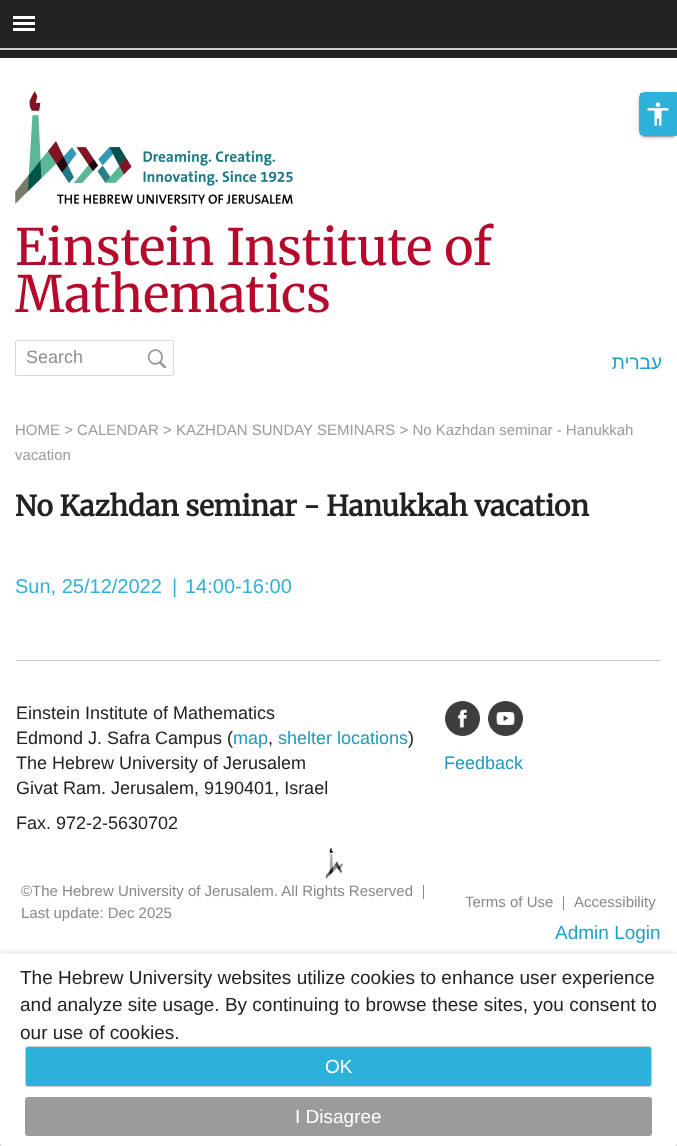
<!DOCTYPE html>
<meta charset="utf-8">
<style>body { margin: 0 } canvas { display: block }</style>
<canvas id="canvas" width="677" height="1146"></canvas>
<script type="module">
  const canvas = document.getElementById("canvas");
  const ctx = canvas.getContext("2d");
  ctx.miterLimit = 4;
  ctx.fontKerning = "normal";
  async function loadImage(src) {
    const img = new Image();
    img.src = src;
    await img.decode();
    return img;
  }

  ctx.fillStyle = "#ffffff";
  ctx.fillRect(0, 0, 677, 1146);
  ctx.fillStyle = "#222222";
  ctx.fillRect(0, 0, 677, 58);
  ctx.fillStyle = "#ffffff";
  ctx.fillRect(13, 16, 22, 3);
  ctx.fillRect(13, 22, 22, 3);
  ctx.fillRect(13, 28, 22, 3);
  ctx.fillStyle = "#cecece";
  ctx.fillRect(0, 48, 677, 2);
  ctx.fillStyle = "rgba(0, 0, 0, 0.2)";
  ctx.filter = "blur(0.5px)";
  ctx.beginPath();
  ctx.roundRect(641, 97, 34, 40, 4);
  ctx.fill();
  ctx.filter = "none";
  ctx.fillStyle = "rgba(0, 0, 0, 0.12)";
  ctx.filter = "blur(2.5px)";
  ctx.beginPath();
  ctx.roundRect(639, 93, 38, 44, 6);
  ctx.fill();
  ctx.filter = "none";
  ctx.fillStyle = "rgba(0, 0, 0, 0.14)";
  ctx.filter = "blur(1px)";
  ctx.beginPath();
  ctx.roundRect(639, 94, 38, 44, 6);
  ctx.fill();
  ctx.filter = "none";
  ctx.beginPath();
  ctx.roundRect(639.5, 92.5, 37, 43, [5.5, 0, 0, 5.5]);
  ctx.strokeStyle = "#2db1d9";
  ctx.stroke();
  ctx.fillStyle = "#2db1d9";
  ctx.fillRect(640, 93, 36, 42);
  ctx.drawImage(await loadImage("img1.png"), 647, 102, 22, 24);
  ctx.drawImage(await loadImage("img2.png"), 15, 91, 278, 113);
  ctx.font = "300 50px Merriweather";
  ctx.fillStyle = "#b60a2c";
  ctx.fillText("Einstein Institute of", 15, 265);
  ctx.fillText("Mathematics", 15, 312);
  ctx.beginPath();
  ctx.roundRect(15.5, 340.5, 158, 35, 1.5);
  ctx.strokeStyle = "#ddd7d5";
  ctx.stroke();
  ctx.font = "18px Liberation Sans";
  ctx.fillStyle = "#8e8e93";
  ctx.fillText("Search", 26, 363);
  ctx.drawImage(await loadImage("img3.png"), 147, 349, 19, 19);
  ctx.direction = "rtl";
  ctx.font = "19px Liberation Sans";
  ctx.fillStyle = "#1ea1c9";
  ctx.fillText("עברית", 662, 369);
  ctx.direction = "ltr";
  ctx.font = "15px Liberation Sans";
  ctx.fillStyle = "#9b9b9b";
  ctx.fillText("HOME > CALENDAR > KAZHDAN SUNDAY SEMINARS > No Kazhdan seminar - Hanukkah", 15, 435);
  ctx.fillText("vacation", 15, 460);
  ctx.font = "bold 28px Merriweather";
  ctx.fillStyle = "#222222";
  ctx.fillText("No Kazhdan seminar - Hanukkah vacation", 15, 516);
  ctx.font = "20px Liberation Sans";
  ctx.fillStyle = "#34afd5";
  ctx.fillText("Sun, 25/12/2022", 15, 593);
  ctx.fillText("|", 172, 593);
  ctx.fillText("14:00-16:00", 185, 593);
  ctx.fillStyle = "#c6c6c6";
  ctx.fillRect(16, 660, 645, 1);
  ctx.font = "18px Liberation Sans";
  ctx.fillStyle = "#222222";
  ctx.fillText("Einstein Institute of Mathematics", 16, 719);
  ctx.fillText("Edmond J. Safra Campus (", 16, 744);
  ctx.fillStyle = "#2199bd";
  ctx.fillText("map", 233, 744);
  ctx.fillStyle = "#222222";
  ctx.fillText(",", 268, 744);
  ctx.fillStyle = "#2199bd";
  ctx.fillText("shelter locations", 278, 744);
  ctx.fillStyle = "#222222";
  ctx.fillText(")", 408, 744);
  ctx.fillText("The Hebrew University of Jerusalem", 16, 769);
  ctx.fillText("Givat Ram. Jerusalem, 9190401, Israel", 16, 794);
  ctx.fillText("Fax. 972-2-5630702", 16, 829);
  ctx.drawImage(await loadImage("img4.png"), 445, 701, 35, 35);
  ctx.drawImage(await loadImage("img5.png"), 488, 701, 35, 35);
  ctx.fillStyle = "#2199bd";
  ctx.fillText("Feedback", 444, 769);
  ctx.drawImage(await loadImage("img6.png"), 325, 847, 18, 32);
  ctx.font = "15px Liberation Sans";
  ctx.fillStyle = "#888888";
  ctx.fillText("©The Hebrew University of Jerusalem. All Rights Reserved", 21, 896);
  ctx.fillRect(423, 885, 1, 14);
  ctx.fillText("Last update: Dec 2025", 21, 918);
  ctx.fillText("Terms of Use", 465, 907);
  ctx.fillRect(563, 896, 1, 14);
  ctx.fillText("Accessibility", 574, 907);
  ctx.font = "19px Liberation Sans";
  ctx.fillStyle = "#1ea1c9";
  ctx.fillText("Admin Login", 555, 939);
  ctx.fillStyle = "rgba(0, 0, 0, 0.48)";
  ctx.filter = "blur(5px)";
  ctx.beginPath();
  ctx.roundRect(0, 957, 677, 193, 3);
  ctx.fill();
  ctx.filter = "none";
  ctx.fillStyle = "#ffffff";
  ctx.beginPath();
  ctx.roundRect(0, 953, 677, 193, 3);
  ctx.fill();
  ctx.fillStyle = "#f6f4f2";
  ctx.fillRect(2, 953, 674, 1);
  ctx.fillStyle = "#222222";
  ctx.fillText("The Hebrew University websites utilize cookies to enhance user experience", 20, 984);
  ctx.fillText("and analyze site usage. By continuing to browse these sites, you consent to", 20, 1011);
  ctx.fillText("our use of cookies.", 20, 1039);
  ctx.fillStyle = "#2db1d9";
  ctx.beginPath();
  ctx.roundRect(25.5, 1046.5, 626, 40, 2.5);
  ctx.fill();
  ctx.strokeStyle = "#cccccc";
  ctx.stroke();
  ctx.fillStyle = "#ffffff";
  ctx.fillText("OK", 325, 1073);
  ctx.fillStyle = "#9b9b9b";
  ctx.beginPath();
  ctx.roundRect(25, 1097, 627, 39, 3);
  ctx.fill();
  ctx.fillStyle = "#ffffff";
  ctx.fillText("I Disagree", 295, 1123);
</script>
